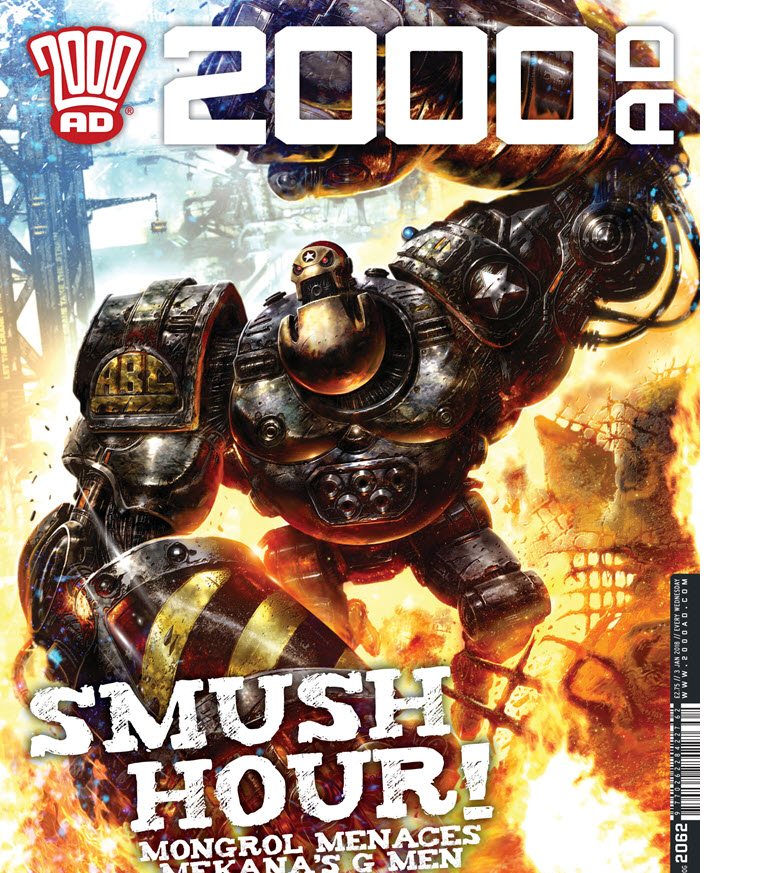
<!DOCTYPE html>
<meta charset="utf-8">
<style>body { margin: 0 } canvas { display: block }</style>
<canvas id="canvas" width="782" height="873"></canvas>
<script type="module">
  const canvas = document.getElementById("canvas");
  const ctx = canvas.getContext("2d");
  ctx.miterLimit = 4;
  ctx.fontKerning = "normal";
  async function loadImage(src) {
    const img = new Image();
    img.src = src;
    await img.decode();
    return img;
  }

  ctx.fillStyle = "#ffffff";
  ctx.fillRect(0, 0, 782, 873);
  ctx.drawImage(await loadImage("img1.png"), 0, 0, 700, 873);
</script>
